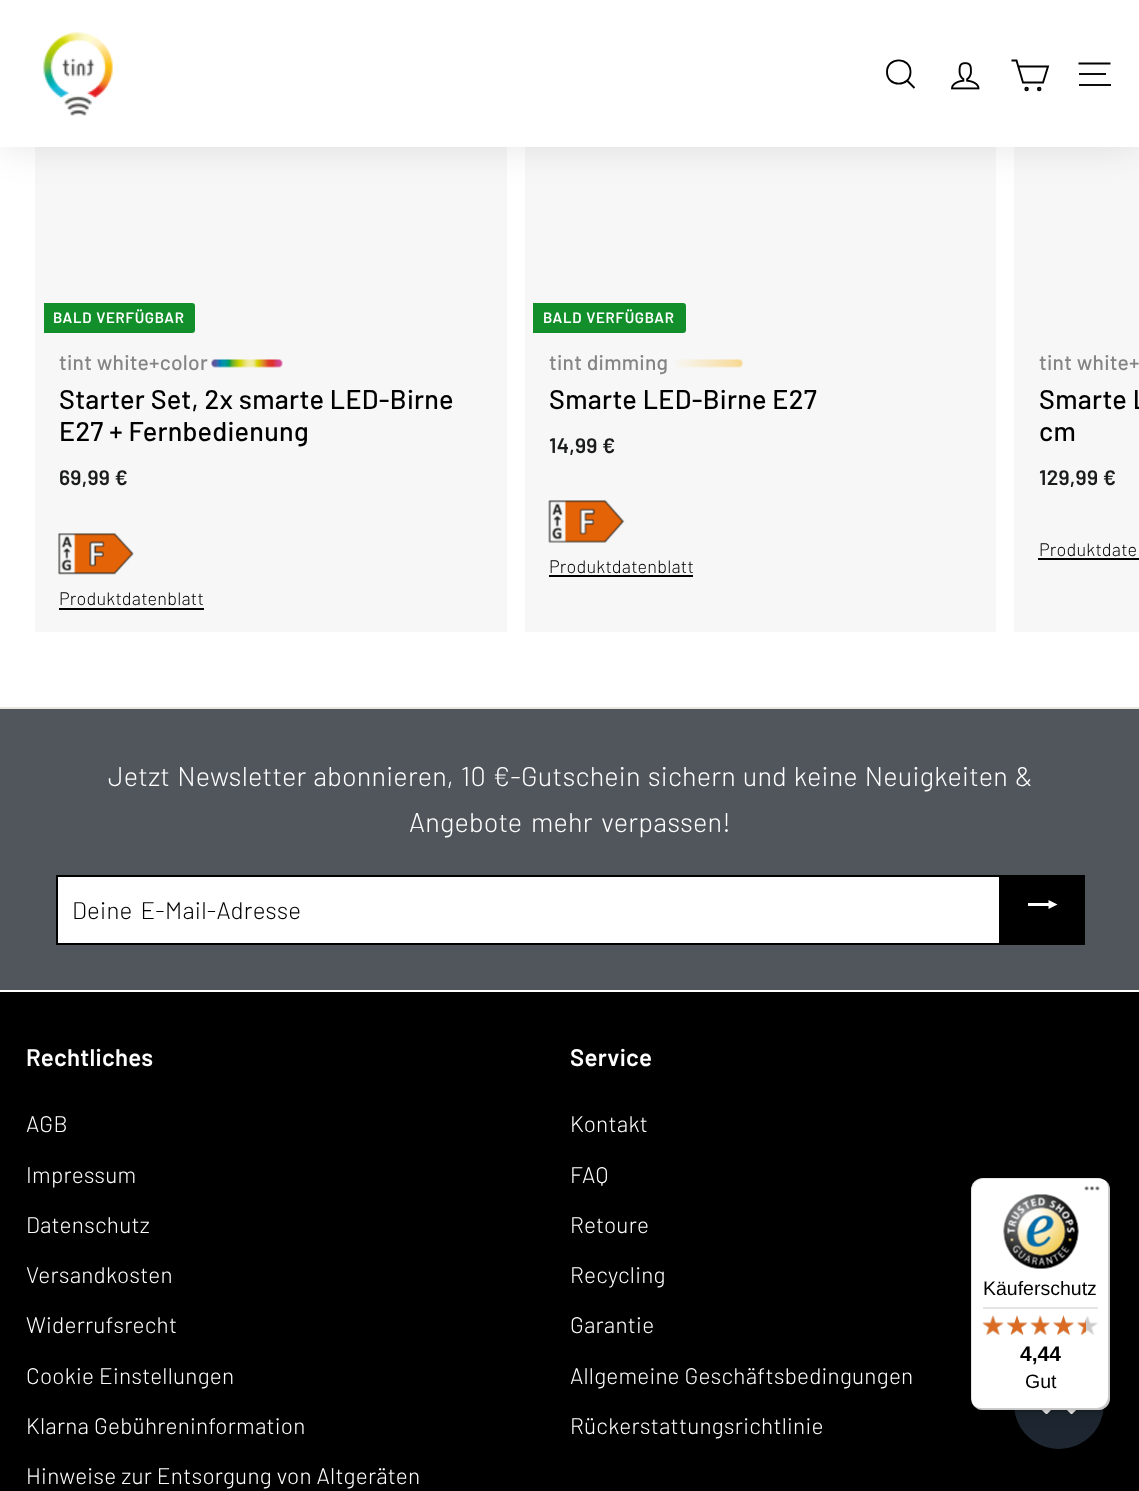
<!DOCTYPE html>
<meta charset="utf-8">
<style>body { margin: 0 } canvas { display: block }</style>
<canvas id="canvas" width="1139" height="1491"></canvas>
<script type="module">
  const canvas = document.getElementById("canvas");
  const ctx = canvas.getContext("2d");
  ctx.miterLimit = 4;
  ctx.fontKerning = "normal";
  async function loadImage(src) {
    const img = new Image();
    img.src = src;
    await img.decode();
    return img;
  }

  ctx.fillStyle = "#ffffff";
  ctx.fillRect(0, 0, 1139, 1491);
  ctx.fillStyle = "#f7f7f7";
  ctx.fillRect(1014, 147, 125, 485);
  ctx.fillRect(525, 147, 471, 485);
  ctx.fillRect(35, 147, 472, 485);
  ctx.fillStyle = "rgba(0, 0, 0, 0.1)";
  ctx.filter = "blur(19px)";
  ctx.beginPath();
  ctx.rect(0, 0, 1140, 147);
  ctx.fill();
  ctx.filter = "none";
  ctx.fillStyle = "#ffffff";
  ctx.fillRect(0, 0, 1139, 147);
  ctx.drawImage(await loadImage("img1.png"), 43, 32, 70, 84);
  ctx.beginPath();
  ctx.moveTo(910.5, 72);
  ctx.bezierCurveTo(910.5, 87.5, 887, 87.5, 887, 72);
  ctx.bezierCurveTo(887, 56.5, 910.5, 56.5, 910.5, 72);
  ctx.closePath();
  ctx.moveTo(914.5, 88);
  ctx.lineTo(907, 80.5);
  ctx.strokeStyle = "#000000";
  ctx.lineWidth = 1.9;
  ctx.stroke();
  ctx.drawImage(await loadImage("img2.png"), 951, 62, 29, 28);
  ctx.beginPath();
  ctx.moveTo(1018.5, 66.5);
  ctx.lineTo(1048, 66.5);
  ctx.lineTo(1043, 82.5);
  ctx.lineTo(1023, 82.5);
  ctx.lineTo(1016.5, 60.5);
  ctx.lineTo(1011.5, 60.5);
  ctx.stroke();
  ctx.beginPath();
  ctx.arc(1026.6, 89, 1.3, 0, Math.PI * 2);
  ctx.stroke();
  ctx.beginPath();
  ctx.arc(1039.2, 89, 1.3, 0, Math.PI * 2);
  ctx.stroke();
  ctx.beginPath();
  ctx.moveTo(1078.5, 63.5);
  ctx.lineTo(1110.5, 63.5);
  ctx.stroke();
  ctx.fillStyle = "#0d0d0d";
  ctx.fillRect(1079, 73, 27, 2);
  ctx.fillRect(1079, 84, 32, 2);
  ctx.fillStyle = "#128f2a";
  ctx.beginPath();
  ctx.roundRect(44, 303, 151, 30, [0, 3, 3, 0]);
  ctx.fill();
  ctx.letterSpacing = "0.75px";
  ctx.font = "600 15px Barlow";
  ctx.fillStyle = "#ffffff";
  ctx.fillText("BALD VERFÜGBAR", 53, 323);
  ctx.letterSpacing = "0.25px";
  ctx.font = "500 21px Barlow";
  ctx.fillStyle = "#848484";
  ctx.fillText("tint white+color", 59, 370);
  ctx.drawImage(await loadImage("img3.png"), 211, 359, 72, 9);
  ctx.font = "500 27px Barlow";
  ctx.fillStyle = "#000000";
  ctx.fillText("Starter Set, 2x smarte LED-Birne", 59, 409);
  ctx.fillText("E27 + Fernbedienung", 59, 441);
  ctx.font = "600 21px Barlow";
  ctx.fillStyle = "#1b1c1c";
  ctx.fillText("69,99 €", 59, 485);
  ctx.drawImage(await loadImage("img4.png"), 58, 533, 76, 42);
  ctx.font = "300 18px Barlow";
  ctx.fillStyle = "#000000";
  ctx.fillText("Produktdatenblatt", 59, 605);
  ctx.fillRect(59, 608, 145, 2);
  ctx.fillStyle = "#128f2a";
  ctx.beginPath();
  ctx.roundRect(533, 303, 153, 30, [0, 3, 3, 0]);
  ctx.fill();
  ctx.letterSpacing = "0.75px";
  ctx.font = "600 15px Barlow";
  ctx.fillStyle = "#ffffff";
  ctx.fillText("BALD VERFÜGBAR", 543, 323);
  ctx.letterSpacing = "0.25px";
  ctx.font = "500 21px Barlow";
  ctx.fillStyle = "#848484";
  ctx.fillText("tint dimming", 549, 370);
  ctx.drawImage(await loadImage("img5.png"), 675, 359, 68, 9);
  ctx.font = "500 27px Barlow";
  ctx.fillStyle = "#000000";
  ctx.fillText("Smarte LED-Birne E27", 549, 409);
  ctx.font = "600 21px Barlow";
  ctx.fillStyle = "#1b1c1c";
  ctx.fillText("14,99 €", 549, 453);
  ctx.drawImage(await loadImage("img6.png"), 548, 500, 77, 43);
  ctx.font = "300 18px Barlow";
  ctx.fillStyle = "#000000";
  ctx.fillText("Produktdatenblatt", 549, 573);
  ctx.fillRect(549, 575, 144, 2);
  ctx.font = "500 21px Barlow";
  ctx.fillStyle = "#848484";
  ctx.fillText("tint white+", 1039, 370);
  ctx.font = "500 27px Barlow";
  ctx.fillStyle = "#000000";
  ctx.fillText("Smarte L", 1039, 409);
  ctx.fillText("cm", 1039, 441);
  ctx.font = "600 21px Barlow";
  ctx.fillStyle = "#1b1c1c";
  ctx.fillText("129,99 €", 1039, 485);
  ctx.font = "300 18px Barlow";
  ctx.fillStyle = "#000000";
  ctx.fillText("Produktdate", 1039, 556);
  ctx.fillRect(1038, 558, 101, 2);
  ctx.fillStyle = "#50565c";
  ctx.fillRect(0, 709, 1139, 281);
  ctx.fillStyle = "#e8e8e1";
  ctx.fillRect(0, 707, 1139, 2);
  ctx.wordSpacing = "1.25px";
  ctx.font = "300 27px Barlow";
  ctx.fillStyle = "#ffffff";
  ctx.fillText("Jetzt Newsletter abonnieren, 10 €-Gutschein sichern und keine Neuigkeiten &", 108, 786);
  ctx.wordSpacing = "3px";
  ctx.fillText("Angebote mehr verpassen!", 409, 832);
  ctx.beginPath();
  ctx.rect(57, 876, 943, 68);
  ctx.fill();
  ctx.lineWidth = 2;
  ctx.stroke();
  ctx.font = "300 24px Barlow";
  ctx.fillStyle = "#000000";
  ctx.fillText("Deine E-Mail-Adresse", 72, 919);
  ctx.fillRect(1001, 875, 84, 70);
  ctx.save();
  ctx.beginPath();
  ctx.rect(1028, 890, 30, 30);
  ctx.clip();
  ctx.fillStyle = "#ffffff";
  ctx.beginPath();
  ctx.moveTo(1027.5, 906);
  ctx.lineTo(1027.5, 903);
  ctx.lineTo(1048.5, 903);
  ctx.lineTo(1048.5, 900);
  ctx.lineTo(1057.5, 904.5);
  ctx.lineTo(1048.5, 909);
  ctx.lineTo(1048.5, 906);
  ctx.closePath();
  ctx.fill();
  ctx.restore();
  ctx.fillRect(0, 992, 1139, 499);
  ctx.wordSpacing = "0px";
  ctx.font = "600 24px Barlow";
  ctx.fillStyle = "#ffffff";
  ctx.fillText("Rechtliches", 26, 1066);
  ctx.font = "300 22.5px Barlow";
  ctx.fillText("AGB", 26, 1132);
  ctx.fillText("Impressum", 26, 1183);
  ctx.fillText("Datenschutz", 26, 1233);
  ctx.fillText("Versandkosten", 26, 1283);
  ctx.fillText("Widerrufsrecht", 26, 1333);
  ctx.fillText("Cookie Einstellungen", 26, 1384);
  ctx.fillText("Klarna Gebühreninformation", 26, 1434);
  ctx.fillText("Hinweise zur Entsorgung von Altgeräten", 26, 1484);
  ctx.font = "600 24px Barlow";
  ctx.fillText("Service", 570, 1066);
  ctx.font = "300 22.5px Barlow";
  ctx.fillText("Kontakt", 570, 1132);
  ctx.fillText("FAQ", 570, 1183);
  ctx.fillText("Retoure", 570, 1233);
  ctx.fillText("Recycling", 570, 1283);
  ctx.fillText("Garantie", 570, 1333);
  ctx.fillText("Allgemeine Geschäftsbedingungen", 570, 1384);
  ctx.fillText("Rückerstattungsrichtlinie", 570, 1434);
  ctx.fillStyle = "#1e2731";
  ctx.beginPath();
  ctx.arc(1059, 1404, 45, 0, Math.PI * 2);
  ctx.fill();
  ctx.drawImage(await loadImage("img19.png"), 1042, 1410, 34, 4);
  ctx.fillStyle = "rgba(0, 0, 0, 0.15)";
  ctx.filter = "blur(6px)";
  ctx.beginPath();
  ctx.roundRect(975, 1182, 140, 233, 12);
  ctx.fill();
  ctx.filter = "none";
  ctx.filter = "blur(1.5px)";
  ctx.beginPath();
  ctx.roundRect(972, 1179, 140, 233, 12);
  ctx.fill();
  ctx.filter = "none";
  ctx.fillStyle = "#ffffff";
  ctx.beginPath();
  ctx.roundRect(971, 1178, 139, 232, 12);
  ctx.fill();
  ctx.fillStyle = "rgba(0, 0, 0, 0.1)";
  ctx.beginPath();
  ctx.moveTo(984, 1179);
  ctx.lineTo(1100, 1179);
  ctx.lineTo(1105, 1180);
  ctx.bezierCurveTo(1103, 1179, 1100, 1178, 1098, 1178);
  ctx.lineTo(983, 1178);
  ctx.bezierCurveTo(976, 1178, 971, 1183, 971, 1190);
  ctx.lineTo(971, 1398);
  ctx.bezierCurveTo(971, 1400, 972, 1403, 973, 1405);
  ctx.lineTo(972, 1400);
  ctx.lineTo(972, 1191);
  ctx.bezierCurveTo(972, 1184, 977, 1179, 984, 1179);
  ctx.closePath();
  ctx.fill();
  ctx.fillStyle = "rgba(0, 0, 0, 0.2)";
  ctx.beginPath();
  ctx.moveTo(974, 1406);
  ctx.bezierCurveTo(976, 1408, 979, 1410, 983, 1410);
  ctx.lineTo(1098, 1410);
  ctx.bezierCurveTo(1105, 1410, 1110, 1405, 1110, 1398);
  ctx.lineTo(1110, 1190);
  ctx.bezierCurveTo(1110, 1186, 1108, 1183, 1106, 1181);
  ctx.bezierCurveTo(1107, 1183, 1108, 1185, 1108, 1188);
  ctx.lineTo(1108, 1396);
  ctx.bezierCurveTo(1108, 1403, 1103, 1408, 1096, 1408);
  ctx.lineTo(981, 1408);
  ctx.bezierCurveTo(978, 1408, 976, 1407, 974, 1406);
  ctx.closePath();
  ctx.fill();
  ctx.fillStyle = "rgba(50, 50, 50, 0.2)";
  ctx.beginPath();
  ctx.moveTo(975, 1407);
  ctx.bezierCurveTo(977, 1409, 980, 1410, 983, 1410);
  ctx.lineTo(1098, 1410);
  ctx.bezierCurveTo(1105, 1410, 1110, 1405, 1110, 1398);
  ctx.lineTo(1110, 1190);
  ctx.bezierCurveTo(1110, 1187, 1109, 1184, 1107, 1182);
  ctx.bezierCurveTo(1108, 1184, 1109, 1186, 1109, 1189);
  ctx.lineTo(1109, 1397);
  ctx.bezierCurveTo(1109, 1404, 1104, 1409, 1097, 1409);
  ctx.lineTo(982, 1409);
  ctx.bezierCurveTo(979, 1409, 977, 1408, 975, 1407);
  ctx.closePath();
  ctx.fill();
  ctx.fillStyle = "rgba(255, 255, 255, 0.3)";
  ctx.beginPath();
  ctx.moveTo(975, 1407);
  ctx.bezierCurveTo(977, 1409, 980, 1410, 983, 1410);
  ctx.lineTo(1098, 1410);
  ctx.bezierCurveTo(1105, 1410, 1110, 1405, 1110, 1398);
  ctx.lineTo(1110, 1190);
  ctx.bezierCurveTo(1110, 1187, 1109, 1184, 1107, 1182);
  ctx.bezierCurveTo(1108, 1184, 1109, 1186, 1109, 1189);
  ctx.lineTo(1109, 1397);
  ctx.bezierCurveTo(1109, 1404, 1104, 1409, 1097, 1409);
  ctx.lineTo(982, 1409);
  ctx.bezierCurveTo(979, 1409, 977, 1408, 975, 1407);
  ctx.closePath();
  ctx.fill();
  ctx.drawImage(await loadImage("img7.png"), 1084, 1186, 16, 5);
  ctx.drawImage(await loadImage("img8.png"), 1003, 1194, 76, 75);
  ctx.letterSpacing = "0px";
  ctx.font = "19.5px Liberation Sans";
  ctx.fillStyle = "#000000";
  ctx.fillText("Käuferschutz", 983, 1295);
  ctx.fillStyle = "#e5e5e5";
  ctx.fillRect(983, 1307, 115, 2);
  ctx.drawImage(await loadImage("img14.png"), 983, 1316, 20, 19);
  ctx.drawImage(await loadImage("img9.png"), 982, 1315, 22, 20);
  ctx.drawImage(await loadImage("img15.png"), 1007, 1315, 20, 20);
  ctx.drawImage(await loadImage("img10.png"), 1007, 1315, 20, 20);
  ctx.drawImage(await loadImage("img16.png"), 1030, 1315, 20, 20);
  ctx.drawImage(await loadImage("img11.png"), 1030, 1315, 20, 20);
  ctx.drawImage(await loadImage("img17.png"), 1053, 1315, 21, 20);
  ctx.drawImage(await loadImage("img12.png"), 1053, 1315, 21, 20);
  ctx.drawImage(await loadImage("img18.png"), 1077, 1316, 21, 19);
  ctx.drawImage(await loadImage("img13.png"), 1077, 1318, 9, 17);
  ctx.font = "bold 21px Liberation Sans";
  ctx.fillStyle = "#000000";
  ctx.fillText("4,44", 1020, 1361);
  ctx.font = "19.5px Liberation Sans";
  ctx.fillText("Gut", 1025, 1388);
</script>
